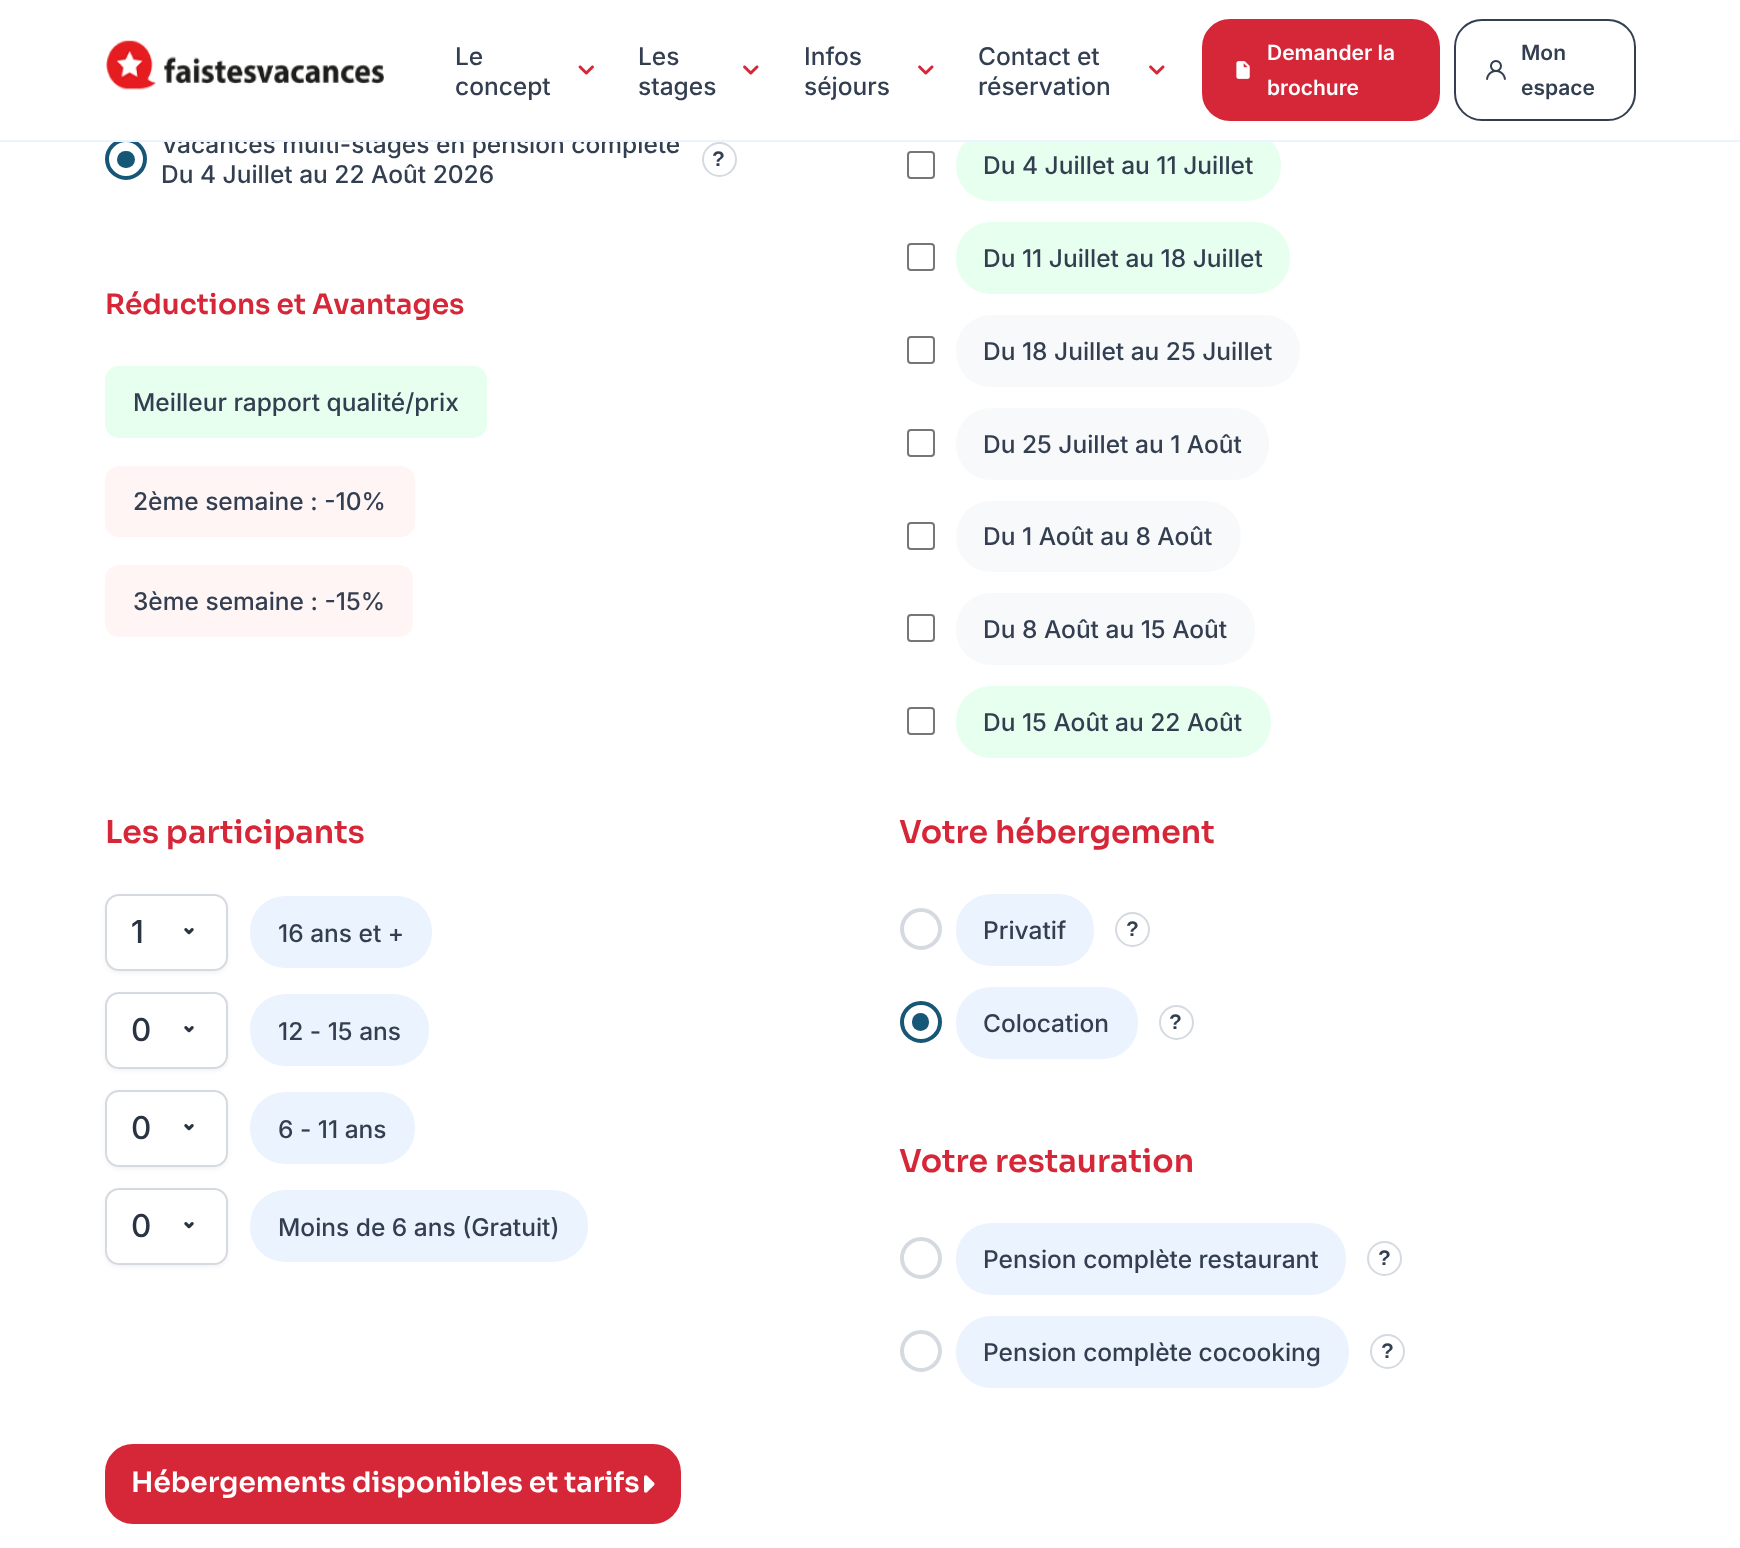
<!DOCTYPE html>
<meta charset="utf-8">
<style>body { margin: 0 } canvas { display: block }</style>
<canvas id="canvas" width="1740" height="1548"></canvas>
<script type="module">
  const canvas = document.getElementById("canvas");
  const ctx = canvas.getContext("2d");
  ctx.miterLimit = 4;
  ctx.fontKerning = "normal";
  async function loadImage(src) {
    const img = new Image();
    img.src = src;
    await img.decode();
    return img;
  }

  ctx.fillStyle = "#ffffff";
  ctx.fillRect(0, 0, 1740, 1548);
  ctx.beginPath();
  ctx.arc(126, 159, 19, 0, Math.PI * 2);
  ctx.strokeStyle = "#165676";
  ctx.lineWidth = 4;
  ctx.stroke();
  ctx.font = "500 24.5px Inter";
  ctx.fillStyle = "#333f51";
  ctx.fillText("Vacances multi-stages en pension complète", 161, 153);
  ctx.fillStyle = "#e6ffee";
  ctx.beginPath();
  ctx.roundRect(956, 130, 325, 71, 35);
  ctx.fill();
  ctx.fillStyle = "#ffffff";
  ctx.fillRect(117, 130, 1154, 10);
  ctx.fillStyle = "#ebf3fe";
  ctx.fillRect(0, 140, 1740, 2);
  ctx.drawImage(await loadImage("img1.png"), 106, 40, 278, 50);
  ctx.fillStyle = "#333f51";
  ctx.fillText("Le", 455, 65);
  ctx.drawImage(await loadImage("img2.png"), 578, 65, 16, 10);
  ctx.fillText("concept", 455, 95);
  ctx.fillText("Les", 638, 65);
  ctx.drawImage(await loadImage("img3.png"), 743, 65, 16, 10);
  ctx.fillText("stages", 638, 95);
  ctx.fillText("Infos", 804, 65);
  ctx.drawImage(await loadImage("img3.png"), 918, 65, 16, 10);
  ctx.fillText("séjours", 804, 95);
  ctx.fillText("Contact et", 978, 65);
  ctx.drawImage(await loadImage("img3.png"), 1149, 65, 16, 10);
  ctx.fillText("réservation", 978, 95);
  ctx.fillStyle = "#d62739";
  ctx.beginPath();
  ctx.roundRect(1203, 20, 236, 100, 27);
  ctx.fill();
  ctx.strokeStyle = "#d62739";
  ctx.lineWidth = 2;
  ctx.stroke();
  ctx.font = "600 21px Inter";
  ctx.fillStyle = "#ffffff";
  ctx.fillText("Demander la", 1267, 60);
  ctx.drawImage(await loadImage("img4.png"), 1236, 61, 14, 18);
  ctx.fillText("brochure", 1267, 95);
  ctx.beginPath();
  ctx.roundRect(1455, 20, 180, 100, 27);
  ctx.strokeStyle = "#333f51";
  ctx.stroke();
  ctx.fillStyle = "#333f51";
  ctx.fillText("Mon", 1521, 60);
  ctx.drawImage(await loadImage("img5.png"), 1486, 60, 20, 20);
  ctx.fillText("espace", 1521, 95);
  ctx.font = "500 24.5px Inter";
  ctx.fillText("Du 4 Juillet au 22 Août 2026", 161, 183);
  ctx.fillStyle = "#165676";
  ctx.beginPath();
  ctx.roundRect(117, 151, 18, 17, 8.5);
  ctx.fill();
  ctx.beginPath();
  ctx.arc(719.5, 159.5, 16.5, 0, Math.PI * 2);
  ctx.strokeStyle = "#d5dae1";
  ctx.stroke();
  ctx.font = "bold 21px Liberation Sans";
  ctx.fillStyle = "#333f51";
  ctx.fillText("?", 712, 166);
  ctx.font = "600 28px Sora";
  ctx.fillStyle = "#d62739";
  ctx.fillText("Réductions et Avantages", 105, 314);
  ctx.fillStyle = "#e6ffee";
  ctx.beginPath();
  ctx.roundRect(105, 366, 382, 72, 14);
  ctx.fill();
  ctx.font = "500 24.5px Inter";
  ctx.fillStyle = "#333f51";
  ctx.fillText("Meilleur rapport qualité/prix", 133, 411);
  ctx.fillStyle = "#fff5f5";
  ctx.beginPath();
  ctx.roundRect(105, 466, 310, 71, 14);
  ctx.fill();
  ctx.fillStyle = "#333f51";
  ctx.fillText("2ème semaine : -10%", 133, 510);
  ctx.fillStyle = "#fff5f5";
  ctx.beginPath();
  ctx.roundRect(105, 565, 308, 72, 14);
  ctx.fill();
  ctx.fillStyle = "#333f51";
  ctx.fillText("3ème semaine : -15%", 133, 610);
  ctx.beginPath();
  ctx.roundRect(908, 152, 26, 26, 3);
  ctx.strokeStyle = "#767676";
  ctx.stroke();
  ctx.fillText("Du 4 Juillet au 11 Juillet", 983, 174);
  ctx.beginPath();
  ctx.roundRect(908, 244, 26, 26, 3);
  ctx.stroke();
  ctx.fillStyle = "#e6ffee";
  ctx.beginPath();
  ctx.roundRect(956, 222, 334, 72, 35);
  ctx.fill();
  ctx.fillStyle = "#333f51";
  ctx.fillText("Du 11 Juillet au 18 Juillet", 983, 267);
  ctx.beginPath();
  ctx.roundRect(908, 337, 26, 26, 3);
  ctx.stroke();
  ctx.fillStyle = "#f8f9fa";
  ctx.beginPath();
  ctx.roundRect(956, 315, 344, 72, 35);
  ctx.fill();
  ctx.fillStyle = "#333f51";
  ctx.fillText("Du 18 Juillet au 25 Juillet", 983, 360);
  ctx.beginPath();
  ctx.roundRect(908, 430, 26, 26, 3);
  ctx.stroke();
  ctx.fillStyle = "#f8f9fa";
  ctx.beginPath();
  ctx.roundRect(956, 408, 313, 72, 35);
  ctx.fill();
  ctx.fillStyle = "#333f51";
  ctx.fillText("Du 25 Juillet au 1 Août", 983, 453);
  ctx.beginPath();
  ctx.roundRect(908, 523, 26, 26, 3);
  ctx.stroke();
  ctx.fillStyle = "#f8f9fa";
  ctx.beginPath();
  ctx.roundRect(956, 501, 285, 71, 35);
  ctx.fill();
  ctx.fillStyle = "#333f51";
  ctx.fillText("Du 1 Août au 8 Août", 983, 545);
  ctx.beginPath();
  ctx.roundRect(908, 615, 26, 26, 3);
  ctx.stroke();
  ctx.fillStyle = "#f8f9fa";
  ctx.beginPath();
  ctx.roundRect(956, 593, 299, 72, 35);
  ctx.fill();
  ctx.fillStyle = "#333f51";
  ctx.fillText("Du 8 Août au 15 Août", 983, 638);
  ctx.beginPath();
  ctx.roundRect(908, 708, 26, 26, 3);
  ctx.stroke();
  ctx.fillStyle = "#e6ffee";
  ctx.beginPath();
  ctx.roundRect(956, 686, 315, 72, 35);
  ctx.fill();
  ctx.fillStyle = "#333f51";
  ctx.fillText("Du 15 Août au 22 Août", 983, 731);
  ctx.font = "600 31.5px Sora";
  ctx.fillStyle = "#d62739";
  ctx.fillText("Les participants", 105, 843);
  ctx.fillStyle = "rgba(0, 0, 0, 0.05)";
  ctx.filter = "blur(2px)";
  ctx.beginPath();
  ctx.roundRect(105, 896, 123, 77, 14);
  ctx.fill();
  ctx.filter = "none";
  ctx.fillStyle = "#ffffff";
  ctx.beginPath();
  ctx.roundRect(105, 894, 123, 77, 14);
  ctx.fill();
  ctx.drawImage(await loadImage("img6.png"), 184, 928, 10, 7);
  ctx.beginPath();
  ctx.roundRect(106, 895, 121, 75, 13);
  ctx.strokeStyle = "#d5dae1";
  ctx.stroke();
  ctx.font = "500 31.5px 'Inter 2'";
  ctx.fillStyle = "#2a3342";
  ctx.fillText("1", 131, 943);
  ctx.fillStyle = "#ebf3fe";
  ctx.beginPath();
  ctx.roundRect(250, 896, 182, 72, 35);
  ctx.fill();
  ctx.font = "500 24.5px Inter";
  ctx.fillStyle = "#333f51";
  ctx.fillText("16 ans et +", 278, 942);
  ctx.fillStyle = "rgba(0, 0, 0, 0.05)";
  ctx.filter = "blur(2px)";
  ctx.beginPath();
  ctx.roundRect(105, 994, 123, 77, 14);
  ctx.fill();
  ctx.filter = "none";
  ctx.fillStyle = "#ffffff";
  ctx.beginPath();
  ctx.roundRect(105, 992, 123, 77, 14);
  ctx.fill();
  ctx.drawImage(await loadImage("img6.png"), 184, 1026, 10, 7);
  ctx.beginPath();
  ctx.roundRect(106, 993, 121, 75, 13);
  ctx.stroke();
  ctx.font = "500 31.5px Inter";
  ctx.fillStyle = "#2a3342";
  ctx.fillText("0", 131, 1041);
  ctx.fillStyle = "#ebf3fe";
  ctx.beginPath();
  ctx.roundRect(250, 994, 179, 72, 35);
  ctx.fill();
  ctx.font = "500 24.5px Inter";
  ctx.fillStyle = "#333f51";
  ctx.fillText("12 - 15 ans", 278, 1040);
  ctx.fillStyle = "rgba(0, 0, 0, 0.05)";
  ctx.filter = "blur(2px)";
  ctx.beginPath();
  ctx.roundRect(105, 1092, 123, 77, 14);
  ctx.fill();
  ctx.filter = "none";
  ctx.fillStyle = "#ffffff";
  ctx.beginPath();
  ctx.roundRect(105, 1090, 123, 77, 14);
  ctx.fill();
  ctx.drawImage(await loadImage("img6.png"), 184, 1124, 10, 7);
  ctx.beginPath();
  ctx.roundRect(106, 1091, 121, 75, 13);
  ctx.stroke();
  ctx.font = "500 31.5px Inter";
  ctx.fillStyle = "#2a3342";
  ctx.fillText("0", 131, 1139);
  ctx.fillStyle = "#ebf3fe";
  ctx.beginPath();
  ctx.roundRect(250, 1092, 165, 72, 35);
  ctx.fill();
  ctx.font = "500 24.5px Inter";
  ctx.fillStyle = "#333f51";
  ctx.fillText("6 - 11 ans", 278, 1138);
  ctx.fillStyle = "rgba(0, 0, 0, 0.05)";
  ctx.filter = "blur(2px)";
  ctx.beginPath();
  ctx.roundRect(105, 1190, 123, 77, 14);
  ctx.fill();
  ctx.filter = "none";
  ctx.fillStyle = "#ffffff";
  ctx.beginPath();
  ctx.roundRect(105, 1188, 123, 77, 14);
  ctx.fill();
  ctx.drawImage(await loadImage("img6.png"), 184, 1222, 10, 7);
  ctx.beginPath();
  ctx.roundRect(106, 1189, 121, 75, 13);
  ctx.stroke();
  ctx.font = "500 31.5px Inter";
  ctx.fillStyle = "#2a3342";
  ctx.fillText("0", 131, 1237);
  ctx.fillStyle = "#ebf3fe";
  ctx.beginPath();
  ctx.roundRect(250, 1190, 338, 72, 35);
  ctx.fill();
  ctx.font = "500 24.5px Inter";
  ctx.fillStyle = "#333f51";
  ctx.fillText("Moins de 6 ans (Gratuit)", 278, 1236);
  ctx.font = "600 31.5px Sora";
  ctx.fillStyle = "#d62739";
  ctx.fillText("Votre hébergement", 899, 843);
  ctx.beginPath();
  ctx.arc(921, 929, 19, 0, Math.PI * 2);
  ctx.lineWidth = 4;
  ctx.stroke();
  ctx.fillStyle = "#ebf3fe";
  ctx.beginPath();
  ctx.roundRect(956, 894, 138, 72, 35);
  ctx.fill();
  ctx.font = "500 24.5px Inter";
  ctx.fillStyle = "#333f51";
  ctx.fillText("Privatif", 983, 939);
  ctx.beginPath();
  ctx.arc(1132.5, 929.5, 16.5, 0, Math.PI * 2);
  ctx.lineWidth = 2;
  ctx.stroke();
  ctx.font = "bold 21px Liberation Sans";
  ctx.fillText("?", 1126, 936);
  ctx.beginPath();
  ctx.arc(921, 1022, 19, 0, Math.PI * 2);
  ctx.strokeStyle = "#165676";
  ctx.lineWidth = 4;
  ctx.stroke();
  ctx.fillStyle = "#165676";
  ctx.beginPath();
  ctx.roundRect(912, 1013, 17, 18, 8.5);
  ctx.fill();
  ctx.fillStyle = "#ebf3fe";
  ctx.beginPath();
  ctx.roundRect(956, 987, 182, 72, 35);
  ctx.fill();
  ctx.font = "500 24.5px Inter";
  ctx.fillStyle = "#333f51";
  ctx.fillText("Colocation", 983, 1032);
  ctx.beginPath();
  ctx.arc(1176.5, 1022.5, 16.5, 0, Math.PI * 2);
  ctx.strokeStyle = "#d5dae1";
  ctx.lineWidth = 2;
  ctx.stroke();
  ctx.font = "bold 21px Liberation Sans";
  ctx.fillText("?", 1169, 1029);
  ctx.font = "600 31.5px Sora";
  ctx.fillStyle = "#d62739";
  ctx.fillText("Votre restauration", 899, 1172);
  ctx.beginPath();
  ctx.arc(921, 1258, 19, 0, Math.PI * 2);
  ctx.lineWidth = 4;
  ctx.stroke();
  ctx.fillStyle = "#ebf3fe";
  ctx.beginPath();
  ctx.roundRect(956, 1223, 390, 72, 35);
  ctx.fill();
  ctx.font = "500 24.5px Inter";
  ctx.fillStyle = "#333f51";
  ctx.fillText("Pension complète restaurant", 983, 1268);
  ctx.beginPath();
  ctx.arc(1384.5, 1258.5, 16.5, 0, Math.PI * 2);
  ctx.lineWidth = 2;
  ctx.stroke();
  ctx.font = "bold 21px Liberation Sans";
  ctx.fillText("?", 1378, 1265);
  ctx.beginPath();
  ctx.arc(921, 1351, 19, 0, Math.PI * 2);
  ctx.lineWidth = 4;
  ctx.stroke();
  ctx.fillStyle = "#ebf3fe";
  ctx.beginPath();
  ctx.roundRect(956, 1316, 393, 72, 35);
  ctx.fill();
  ctx.font = "500 24.5px Inter";
  ctx.fillStyle = "#333f51";
  ctx.fillText("Pension complète cocooking", 983, 1361);
  ctx.beginPath();
  ctx.arc(1387.5, 1351.5, 16.5, 0, Math.PI * 2);
  ctx.lineWidth = 2;
  ctx.stroke();
  ctx.font = "bold 21px Liberation Sans";
  ctx.fillText("?", 1381, 1358);
  ctx.fillStyle = "#d62739";
  ctx.beginPath();
  ctx.roundRect(106, 1445, 574, 78, 27);
  ctx.fill();
  ctx.strokeStyle = "#d62739";
  ctx.stroke();
  ctx.font = "600 28px Sora";
  ctx.fillStyle = "#ffffff";
  ctx.fillText("Hébergements disponibles et tarifs", 131, 1492);
  ctx.drawImage(await loadImage("img7.png"), 644, 1475, 11, 18);
</script>
